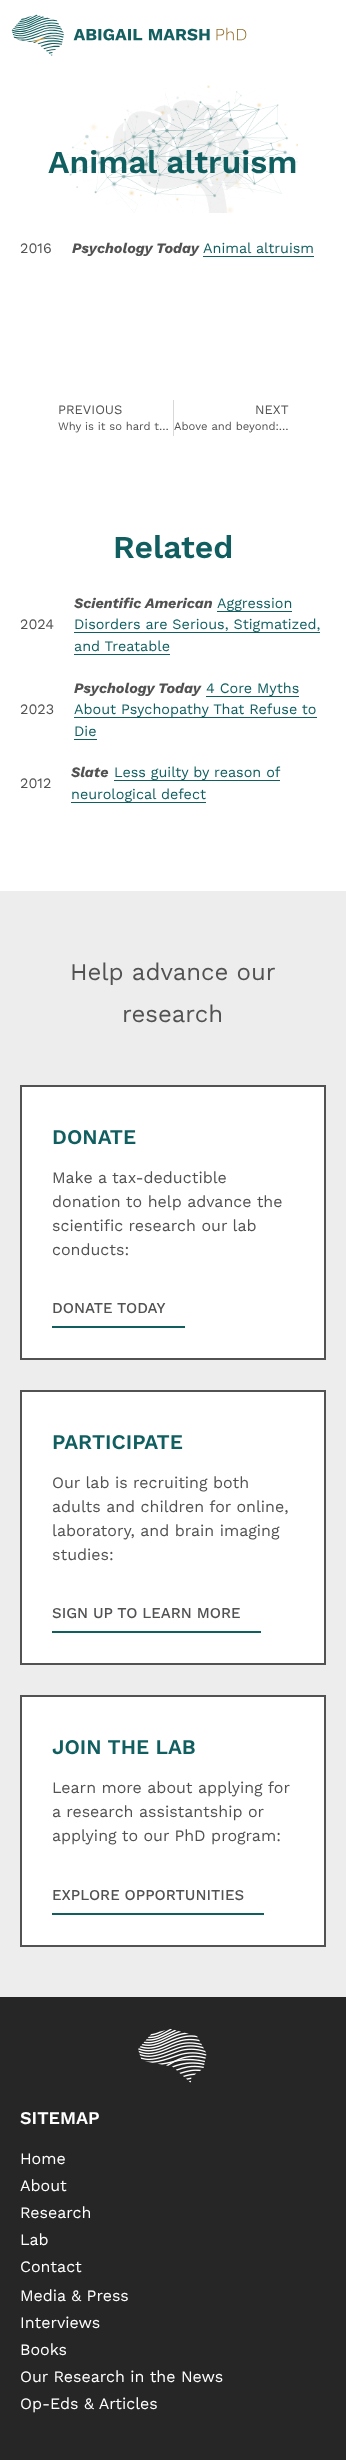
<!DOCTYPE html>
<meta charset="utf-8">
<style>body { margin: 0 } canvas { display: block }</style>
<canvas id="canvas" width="346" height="2460"></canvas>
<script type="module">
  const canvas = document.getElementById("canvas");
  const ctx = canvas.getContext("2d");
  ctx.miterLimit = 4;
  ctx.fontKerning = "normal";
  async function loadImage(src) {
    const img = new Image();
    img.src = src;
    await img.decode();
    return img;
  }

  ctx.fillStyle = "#ffffff";
  ctx.fillRect(0, 0, 346, 2460);
  ctx.drawImage(await loadImage("img1.png"), 11, 14, 236, 42);
  ctx.drawImage(await loadImage("img2.png"), 62, 85, 236, 128);
  ctx.font = "600 32px Work Sans";
  ctx.fillStyle = "#105e60";
  ctx.fillText("Animal altruism", 48, 173);
  ctx.font = "14.4px Work Sans";
  ctx.fillStyle = "#525252";
  ctx.fillText("2016", 20, 253);
  ctx.font = "italic bold 14.4px Work Sans";
  ctx.fillText("Psychology Today", 72, 253);
  ctx.font = "14.4px Work Sans";
  ctx.fillStyle = "#105e60";
  ctx.fillText("Animal altruism", 203, 253);
  ctx.fillRect(203, 256, 111, 1);
  ctx.font = "13px Work Sans";
  ctx.fillStyle = "#525252";
  ctx.fillText("PREVIOUS", 58, 414);
  ctx.font = "11.25px Work Sans";
  ctx.fillText("Why is it so hard t…", 58, 430);
  ctx.fillStyle = "#d5d8dc";
  ctx.fillRect(173, 400, 1, 36);
  ctx.font = "13px Work Sans";
  ctx.fillStyle = "#525252";
  ctx.fillText("NEXT", 255, 414);
  ctx.font = "11.25px Work Sans";
  ctx.fillText("Above and beyond:…", 174, 430);
  ctx.font = "600 32px Work Sans";
  ctx.fillStyle = "#105e60";
  ctx.fillText("Related", 113, 558);
  ctx.font = "14.4px Work Sans";
  ctx.fillStyle = "#525252";
  ctx.fillText("2024", 20, 629);
  ctx.font = "italic bold 14.4px Work Sans";
  ctx.fillText("Scientific American", 74, 608);
  ctx.fillStyle = "#105e60";
  ctx.fillRect(217, 611, 75, 1);
  ctx.font = "14.4px Work Sans";
  ctx.fillText("Aggression", 217, 608);
  ctx.fillRect(74, 632, 246, 1);
  ctx.fillText("Disorders are Serious, Stigmatized,", 74, 629);
  ctx.fillText("and Treatable", 74, 651);
  ctx.fillRect(74, 654, 96, 1);
  ctx.fillStyle = "#525252";
  ctx.fillText("2023", 20, 714);
  ctx.font = "italic bold 14.4px Work Sans";
  ctx.fillText("Psychology Today", 74, 693);
  ctx.fillStyle = "#105e60";
  ctx.fillRect(206, 696, 93, 1);
  ctx.font = "14.4px Work Sans";
  ctx.fillText("4 Core Myths", 206, 693);
  ctx.fillRect(74, 717, 243, 1);
  ctx.fillText("About Psychopathy That Refuse to", 74, 714);
  ctx.fillText("Die", 74, 736);
  ctx.fillRect(74, 739, 23, 1);
  ctx.fillStyle = "#525252";
  ctx.fillText("2012", 20, 788);
  ctx.font = "italic bold 14.4px Work Sans";
  ctx.fillText("Slate", 71, 777);
  ctx.fillStyle = "#105e60";
  ctx.fillRect(114, 780, 166, 1);
  ctx.font = "14.4px Work Sans";
  ctx.fillText("Less guilty by reason of", 114, 777);
  ctx.fillRect(71, 802, 135, 1);
  ctx.fillText("neurological defect", 71, 799);
  ctx.fillStyle = "#ededed";
  ctx.fillRect(0, 891, 346, 1106);
  ctx.font = "24px Work Sans";
  ctx.fillStyle = "#525252";
  ctx.fillText("Help advance our", 70, 980);
  ctx.fillText("research", 122, 1022);
  ctx.fillStyle = "#ffffff";
  ctx.beginPath();
  ctx.rect(21, 1086, 304, 273);
  ctx.fill();
  ctx.strokeStyle = "#525252";
  ctx.lineWidth = 2;
  ctx.stroke();
  ctx.font = "600 20.75px Work Sans";
  ctx.fillStyle = "#105e60";
  ctx.fillText("DONATE", 52, 1144);
  ctx.font = "16px Work Sans";
  ctx.fillStyle = "#525252";
  ctx.fillText("Make a tax-deductible", 52, 1183);
  ctx.fillText("donation to help advance the", 52, 1207);
  ctx.fillText("scientific research our lab", 52, 1231);
  ctx.fillText("conducts:", 52, 1255);
  ctx.fillStyle = "#105e60";
  ctx.fillRect(52, 1326, 133, 2);
  ctx.font = "500 15px Work Sans";
  ctx.fillStyle = "#525252";
  ctx.fillText("DONATE TODAY", 52, 1313);
  ctx.fillStyle = "#ffffff";
  ctx.beginPath();
  ctx.rect(21, 1391, 304, 273);
  ctx.fill();
  ctx.stroke();
  ctx.font = "600 20.75px Work Sans";
  ctx.fillStyle = "#105e60";
  ctx.fillText("PARTICIPATE", 52, 1449);
  ctx.font = "16px Work Sans";
  ctx.fillStyle = "#525252";
  ctx.fillText("Our lab is recruiting both", 52, 1488);
  ctx.fillText("adults and children for online,", 52, 1512);
  ctx.fillText("laboratory, and brain imaging", 52, 1536);
  ctx.fillText("studies:", 52, 1560);
  ctx.fillStyle = "#105e60";
  ctx.fillRect(52, 1631, 209, 2);
  ctx.font = "500 15px Work Sans";
  ctx.fillStyle = "#525252";
  ctx.fillText("SIGN UP TO LEARN MORE", 52, 1618);
  ctx.fillStyle = "#ffffff";
  ctx.beginPath();
  ctx.rect(21, 1696, 304, 250);
  ctx.fill();
  ctx.stroke();
  ctx.font = "600 20.75px Work Sans";
  ctx.fillStyle = "#105e60";
  ctx.fillText("JOIN THE LAB", 52, 1754);
  ctx.font = "16px Work Sans";
  ctx.fillStyle = "#525252";
  ctx.fillText("Learn more about applying for", 52, 1793);
  ctx.fillText("a research assistantship or", 52, 1817);
  ctx.fillText("applying to our PhD program:", 52, 1841);
  ctx.fillStyle = "#105e60";
  ctx.fillRect(52, 1913, 212, 2);
  ctx.font = "500 15px Work Sans";
  ctx.fillStyle = "#525252";
  ctx.fillText("EXPLORE OPPORTUNITIES", 52, 1900);
  ctx.fillStyle = "#262626";
  ctx.fillRect(0, 1997, 346, 463);
  ctx.drawImage(await loadImage("img3.png"), 138, 2028, 69, 55);
  ctx.font = "600 18px Work Sans";
  ctx.fillStyle = "#ffffff";
  ctx.fillText("SITEMAP", 20, 2124);
  ctx.font = "16px Work Sans";
  ctx.fillText("Home", 20, 2164);
  ctx.fillText("About", 20, 2191);
  ctx.fillText("Research", 20, 2218);
  ctx.fillText("Lab", 20, 2245);
  ctx.fillText("Contact", 20, 2272);
  ctx.fillText("Media & Press", 20, 2301);
  ctx.fillText("Interviews", 20, 2328);
  ctx.fillText("Books", 20, 2355);
  ctx.fillText("Our Research in the News", 20, 2382);
  ctx.fillText("Op-Eds & Articles", 20, 2409);
</script>
